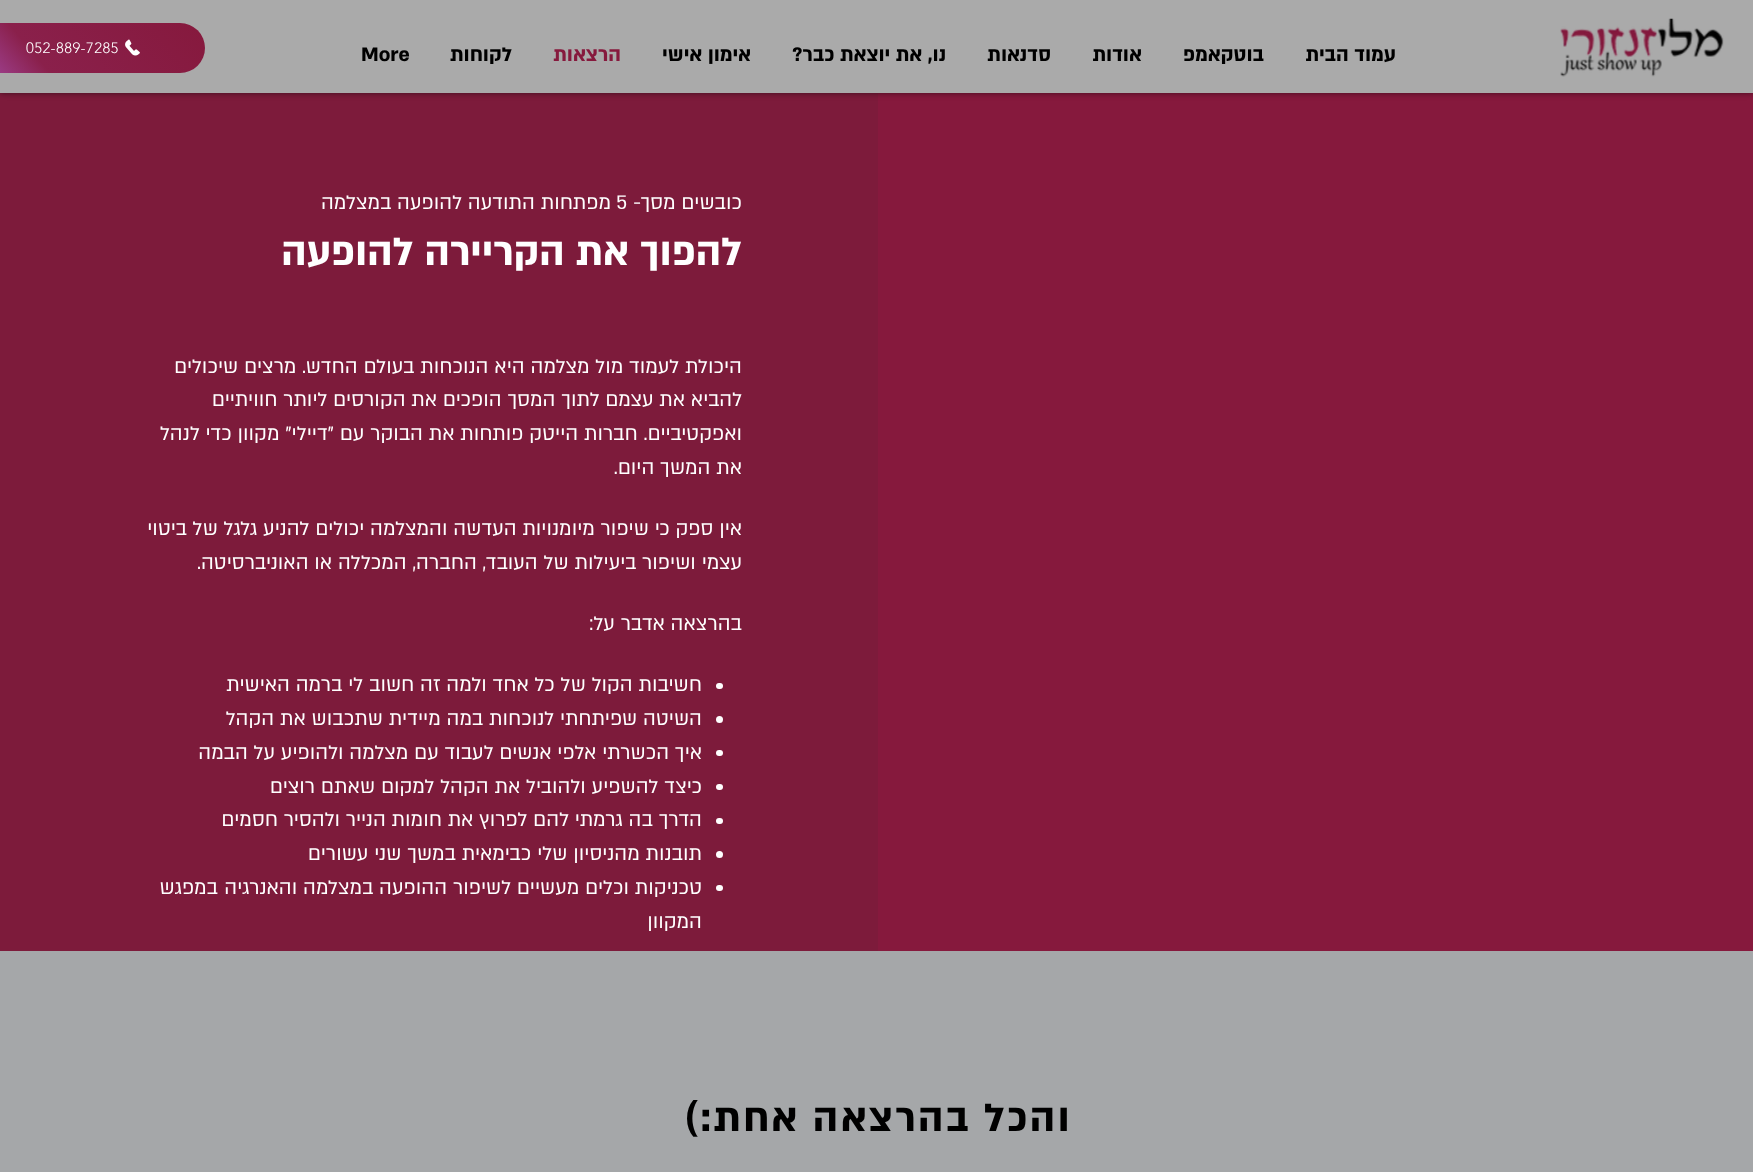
<!DOCTYPE html>
<meta charset="utf-8">
<style>body { margin: 0 } canvas { display: block }</style>
<canvas id="canvas" width="1753" height="1172"></canvas>
<script type="module">
  const canvas = document.getElementById("canvas");
  const ctx = canvas.getContext("2d");
  ctx.miterLimit = 4;
  ctx.fontKerning = "normal";
  async function loadImage(src) {
    const img = new Image();
    img.src = src;
    await img.decode();
    return img;
  }
  let gradient;

  ctx.fillStyle = "#2b2b2b";
  ctx.fillRect(0, 0, 1753, 1172);
  ctx.fillStyle = "#86193d";
  ctx.fillRect(878, 93, 875, 858);
  ctx.fillStyle = "#7d1b3b";
  ctx.fillRect(0, 93, 878, 858);
  ctx.save();
  ctx.beginPath();
  ctx.moveTo(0, 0);
  ctx.lineTo(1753, 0);
  ctx.lineTo(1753, 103);
  ctx.lineTo(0, 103);
  ctx.closePath();
  ctx.moveTo(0, 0);
  ctx.lineTo(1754, 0);
  ctx.lineTo(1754, 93);
  ctx.lineTo(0, 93);
  ctx.closePath();
  ctx.clip("evenodd");
  ctx.fillStyle = "rgba(0, 0, 0, 0.5)";
  ctx.filter = "blur(3px)";
  ctx.beginPath();
  ctx.rect(0, 0, 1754, 93);
  ctx.fill();
  ctx.filter = "none";
  ctx.restore();
  ctx.fillStyle = "rgba(255, 255, 255, 0.6)";
  ctx.fillRect(0, 0, 1753, 93);
  ctx.drawImage(await loadImage("img1.png"), 1560, 18, 164, 59);
  ctx.direction = "rtl";
  ctx.font = "bold 22.5px 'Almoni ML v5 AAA'";
  ctx.fillStyle = "#000000";
  ctx.fillText("עמוד הבית", 1396, 61);
  ctx.fillText("בוטקאמפ", 1264, 61);
  ctx.fillText("אודות", 1142, 61);
  ctx.fillText("סדנאות", 1051, 61);
  ctx.fillText("נו, את יוצאת כבר?", 946, 61);
  ctx.fillText("אימון אישי", 751, 61);
  ctx.fillStyle = "#86193d";
  ctx.fillText("הרצאות", 621, 61);
  ctx.fillStyle = "#000000";
  ctx.fillText("לקוחות", 512, 61);
  ctx.direction = "ltr";
  ctx.fillText("More", 361, 61);
  gradient = ctx.createLinearGradient(2.3, 117, 168, -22);
  gradient.addColorStop(0, "#a54daa");
  gradient.addColorStop(0.3, "#8a204b");
  gradient.addColorStop(1, "#86193d");
  ctx.fillStyle = gradient;
  ctx.beginPath();
  ctx.roundRect(-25, 23, 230, 50, 25);
  ctx.fill();
  ctx.drawImage(await loadImage("img2.png"), 125, 39, 15, 17);
  ctx.letterSpacing = "0.4px";
  ctx.font = "300 15px 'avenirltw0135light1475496'";
  ctx.fillStyle = "#ffffff";
  ctx.fillText("052-889-7285", 26, 53);
  ctx.letterSpacing = "0px";
  ctx.direction = "rtl";
  ctx.font = "22.5px 'Almoni ML v5 AAA'";
  ctx.fillText("כובשים מסך-", 742, 209);
  ctx.direction = "ltr";
  ctx.fillText("5", 616, 209);
  ctx.direction = "rtl";
  ctx.fillText("מפתחות התודעה להופעה במצלמה", 611, 209);
  ctx.font = "bold 45px 'Almoni ML v5 AAA'";
  ctx.fillText("להפוך את הקריירה להופעה", 742, 265);
  ctx.font = "22.5px 'Almoni ML v5 AAA'";
  ctx.fillText("היכולת לעמוד מול מצלמה היא הנוכחות בעולם החדש. מרצים שיכולים", 742, 373);
  ctx.fillText("להביא את עצמם לתוך המסך הופכים את הקורסים ליותר חוויתיים", 742, 406);
  ctx.fillText("ואפקטיביים. חברות הייטק פותחות את הבוקר עם \"דיילי\" מקוון כדי לנהל", 742, 440);
  ctx.fillText("את המשך היום.", 742, 474);
  ctx.fillText("אין ספק כי שיפור מיומנויות העדשה והמצלמה יכולים להניע גלגל של ביטוי", 742, 535);
  ctx.fillText("עצמי ושיפור ביעילות של העובד, החברה, המכללה או האוניברסיטה.", 742, 569);
  ctx.fillText("בהרצאה אדבר על:", 742, 630);
  ctx.beginPath();
  ctx.roundRect(716, 683, 7, 6, 3);
  ctx.fill();
  ctx.fillText("חשיבות הקול של כל אחד ולמה זה חשוב לי ברמה האישית", 702, 691);
  ctx.beginPath();
  ctx.arc(719.5, 719.5, 3.5, 0, Math.PI * 2);
  ctx.fill();
  ctx.fillText("השיטה שפיתחתי לנוכחות במה מיידית שתכבוש את הקהל", 702, 725);
  ctx.beginPath();
  ctx.roundRect(716, 750, 7, 6, 3);
  ctx.fill();
  ctx.fillText("איך הכשרתי אלפי אנשים לעבוד עם מצלמה ולהופיע על הבמה", 702, 759);
  ctx.beginPath();
  ctx.roundRect(716, 784, 7, 6, 3);
  ctx.fill();
  ctx.fillText("כיצד להשפיע ולהוביל את הקהל למקום שאתם רוצים", 702, 793);
  ctx.beginPath();
  ctx.roundRect(716, 818, 7, 6, 3);
  ctx.fill();
  ctx.fillText("הדרך בה גרמתי להם לפרוץ את חומות הנייר ולהסיר חסמים", 702, 826);
  ctx.beginPath();
  ctx.arc(719.5, 854.5, 3.5, 0, Math.PI * 2);
  ctx.fill();
  ctx.fillText("תובנות מהניסיון שלי כבימאית במשך שני עשורים", 702, 860);
  ctx.beginPath();
  ctx.roundRect(716, 885, 7, 6, 3);
  ctx.fill();
  ctx.fillText("טכניקות וכלים מעשיים לשיפור ההופעה במצלמה והאנרגיה", 702, 894);
  ctx.fillText("במפגש", 218, 894);
  ctx.fillText("המקוון", 702, 928);
  ctx.fillStyle = "#a5a7a9";
  ctx.fillRect(0, 951, 1753, 221);
  ctx.letterSpacing = "2.25px";
  ctx.font = "bold 45px 'Almoni ML v5 AAA'";
  ctx.fillStyle = "#000000";
  ctx.fillText("והכל בהרצאה אחת:)", 1072, 1131);
</script>
